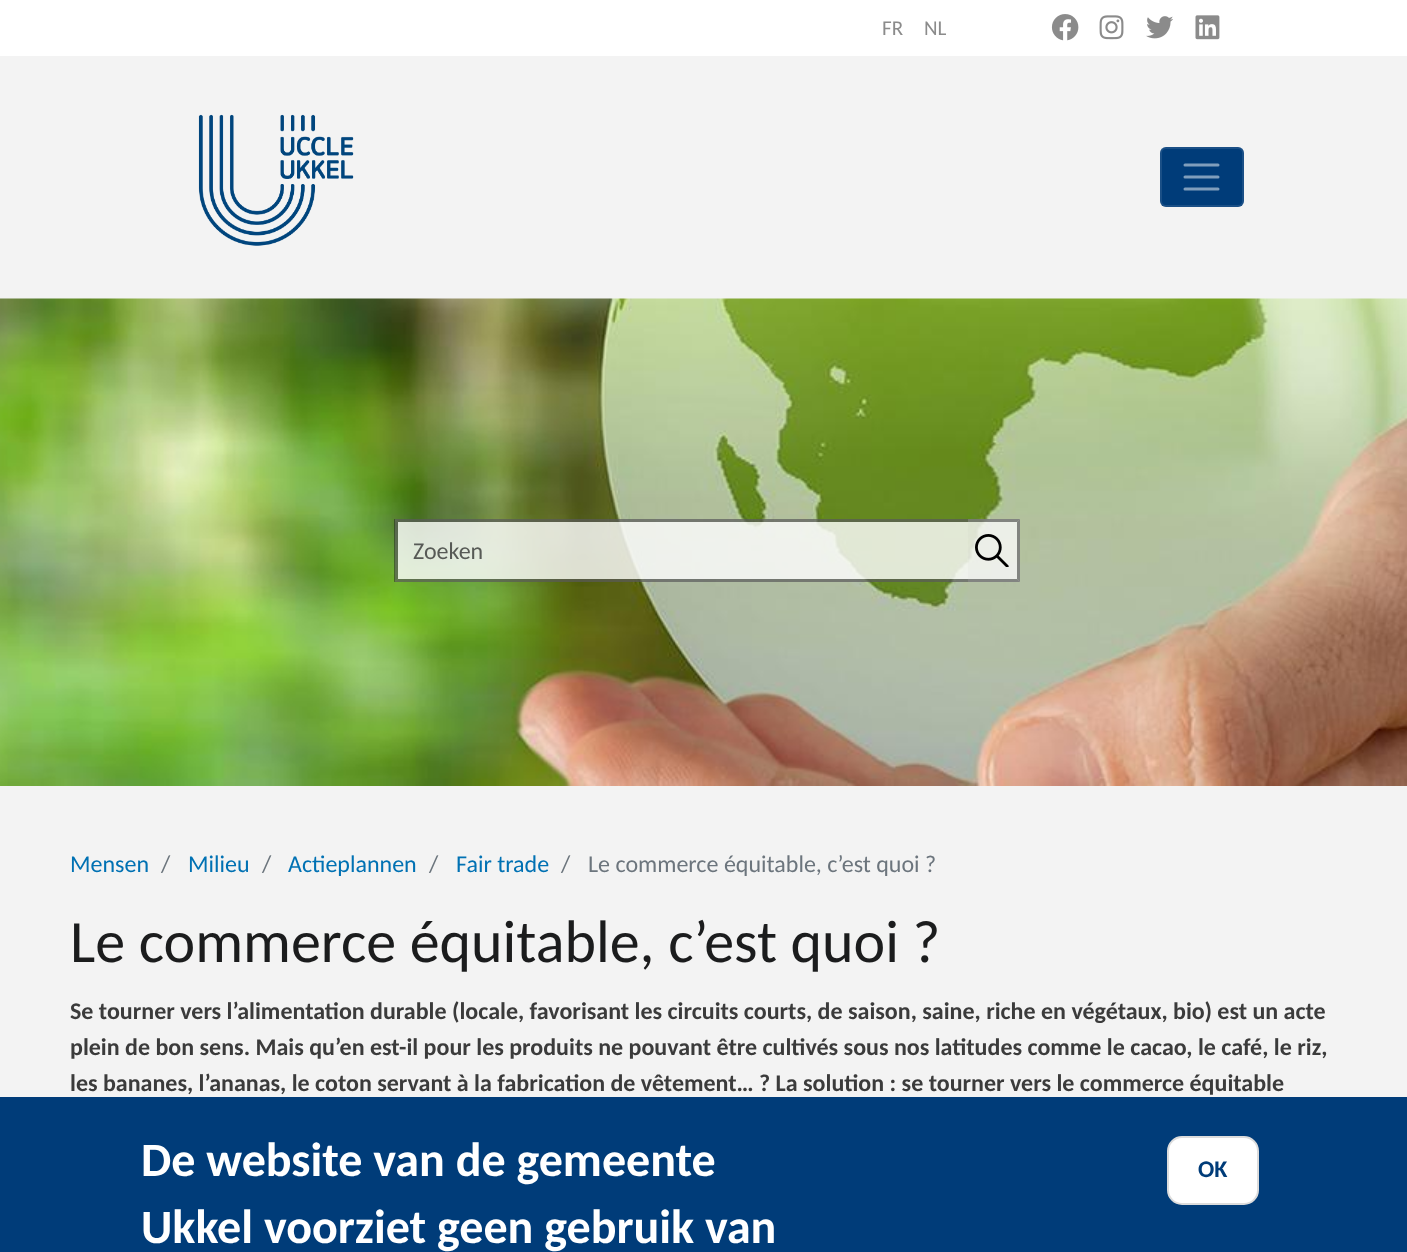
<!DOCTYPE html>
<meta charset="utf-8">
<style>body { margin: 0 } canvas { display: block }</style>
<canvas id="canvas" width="1407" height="1252"></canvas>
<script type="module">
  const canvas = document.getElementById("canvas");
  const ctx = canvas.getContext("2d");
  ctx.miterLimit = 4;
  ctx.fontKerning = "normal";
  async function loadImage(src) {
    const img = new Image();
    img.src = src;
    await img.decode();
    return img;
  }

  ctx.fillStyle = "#f3f3f3";
  ctx.fillRect(0, 0, 1407, 1252);
  ctx.fillStyle = "#ffffff";
  ctx.fillRect(0, 0, 1407, 56);
  ctx.font = "21px Carlito";
  ctx.fillStyle = "#8b8b8b";
  ctx.fillText("FR", 882, 35);
  ctx.fillText("NL", 924, 35);
  ctx.drawImage(await loadImage("img1.png"), 1051, 14, 28, 27);
  ctx.drawImage(await loadImage("img2.png"), 1099, 15, 25, 25);
  ctx.drawImage(await loadImage("img3.png"), 1146, 16, 27, 23);
  ctx.drawImage(await loadImage("img4.png"), 1195, 15, 25, 25);
  ctx.drawImage(await loadImage("img5.png"), 198, 114, 156, 132);
  ctx.fillStyle = "#003c79";
  ctx.beginPath();
  ctx.roundRect(1160, 147, 84, 60, 6);
  ctx.fill();
  ctx.beginPath();
  ctx.roundRect(1161, 148, 82, 58, 5);
  ctx.strokeStyle = "rgba(255, 255, 255, 0.1)";
  ctx.lineWidth = 2;
  ctx.stroke();
  ctx.beginPath();
  ctx.moveTo(1185, 165);
  ctx.lineTo(1218, 165);
  ctx.moveTo(1185, 177);
  ctx.lineTo(1218, 177);
  ctx.moveTo(1185, 189);
  ctx.lineTo(1218, 189);
  ctx.strokeStyle = "#809ebc";
  ctx.lineWidth = 3;
  ctx.lineCap = "round";
  ctx.stroke();
  ctx.drawImage(await loadImage("img7.png"), 0, 298, 1407, 488);
  ctx.fillStyle = "rgba(243, 243, 243, 0.4)";
  ctx.fillRect(395, 519, 573, 63);
  ctx.fillStyle = "rgba(27, 28, 29, 0.5)";
  ctx.beginPath();
  ctx.moveTo(394, 519);
  ctx.lineTo(968, 519);
  ctx.lineTo(968, 522);
  ctx.lineTo(398, 522);
  ctx.closePath();
  ctx.fill();
  ctx.beginPath();
  ctx.moveTo(968, 582);
  ctx.lineTo(394, 582);
  ctx.lineTo(398, 579);
  ctx.lineTo(968, 579);
  ctx.closePath();
  ctx.fill();
  ctx.beginPath();
  ctx.moveTo(394, 582);
  ctx.lineTo(394, 519);
  ctx.lineTo(398, 522);
  ctx.lineTo(398, 579);
  ctx.closePath();
  ctx.fill();
  ctx.fillStyle = "rgba(255, 255, 255, 0.7)";
  ctx.fillRect(398, 522, 570, 57);
  ctx.font = "24px Carlito";
  ctx.fillStyle = "#575a56";
  ctx.fillText("Zoeken", 413, 559);
  ctx.fillStyle = "rgba(255, 255, 255, 0.7)";
  ctx.fillRect(968, 519, 52, 63);
  ctx.fillStyle = "rgba(27, 28, 29, 0.5)";
  ctx.beginPath();
  ctx.moveTo(968, 519);
  ctx.lineTo(1020, 519);
  ctx.lineTo(1017, 522);
  ctx.lineTo(968, 522);
  ctx.closePath();
  ctx.fill();
  ctx.beginPath();
  ctx.moveTo(1020, 519);
  ctx.lineTo(1020, 582);
  ctx.lineTo(1017, 579);
  ctx.lineTo(1017, 522);
  ctx.closePath();
  ctx.fill();
  ctx.beginPath();
  ctx.moveTo(1020, 582);
  ctx.lineTo(968, 582);
  ctx.lineTo(968, 579);
  ctx.lineTo(1017, 579);
  ctx.closePath();
  ctx.fill();
  ctx.fillStyle = "rgba(243, 243, 243, 0.4)";
  ctx.fillRect(968, 522, 49, 57);
  ctx.drawImage(await loadImage("img6.png"), 975, 534, 34, 33);
  ctx.fillStyle = "#0071b3";
  ctx.fillText("Mensen", 70, 872);
  ctx.fillStyle = "#6c757d";
  ctx.fillText("/", 161, 872);
  ctx.fillStyle = "#0071b3";
  ctx.fillText("Milieu", 188, 872);
  ctx.fillStyle = "#6c757d";
  ctx.fillText("/", 262, 872);
  ctx.fillStyle = "#0071b3";
  ctx.fillText("Actieplannen", 288, 872);
  ctx.fillStyle = "#6c757d";
  ctx.fillText("/", 429, 872);
  ctx.fillStyle = "#0071b3";
  ctx.fillText("Fair trade", 456, 872);
  ctx.fillStyle = "#6c757d";
  ctx.fillText("/", 561, 872);
  ctx.fillText("Le commerce équitable, c’est quoi ?", 588, 872);
  ctx.font = "60px Carlito";
  ctx.fillStyle = "#1b1c1d";
  ctx.fillText("Le commerce équitable, c’est quoi ?", 70, 962);
  ctx.font = "bold 24px Carlito";
  ctx.fillStyle = "#3b3b3b";
  ctx.fillText("Se tourner vers l’alimentation durable (locale, favorisant les circuits courts, de saison, saine, riche en végétaux, bio) est un acte", 70, 1019);
  ctx.fillText("plein de bon sens. Mais qu’en est-il pour les produits ne pouvant être cultivés sous nos latitudes comme le cacao, le café, le riz,", 70, 1055);
  ctx.fillText("les bananes, l’ananas, le coton servant à la fabrication de vêtement… ? La solution : se tourner vers le commerce équitable", 70, 1091);
  ctx.fillStyle = "#003c79";
  ctx.fillRect(0, 1097, 1407, 155);
  ctx.font = "bold 48px Carlito";
  ctx.fillStyle = "#ffffff";
  ctx.fillText("De website van de gemeente", 141, 1176);
  ctx.fillText("Ukkel voorziet geen gebruik van", 141, 1243);
  ctx.beginPath();
  ctx.roundRect(1168, 1137, 90, 67, 14);
  ctx.fill();
  ctx.strokeStyle = "#dcdcdc";
  ctx.lineWidth = 2;
  ctx.stroke();
  ctx.font = "bold 24px Carlito";
  ctx.fillStyle = "#003c79";
  ctx.fillText("OK", 1198, 1177);
</script>
